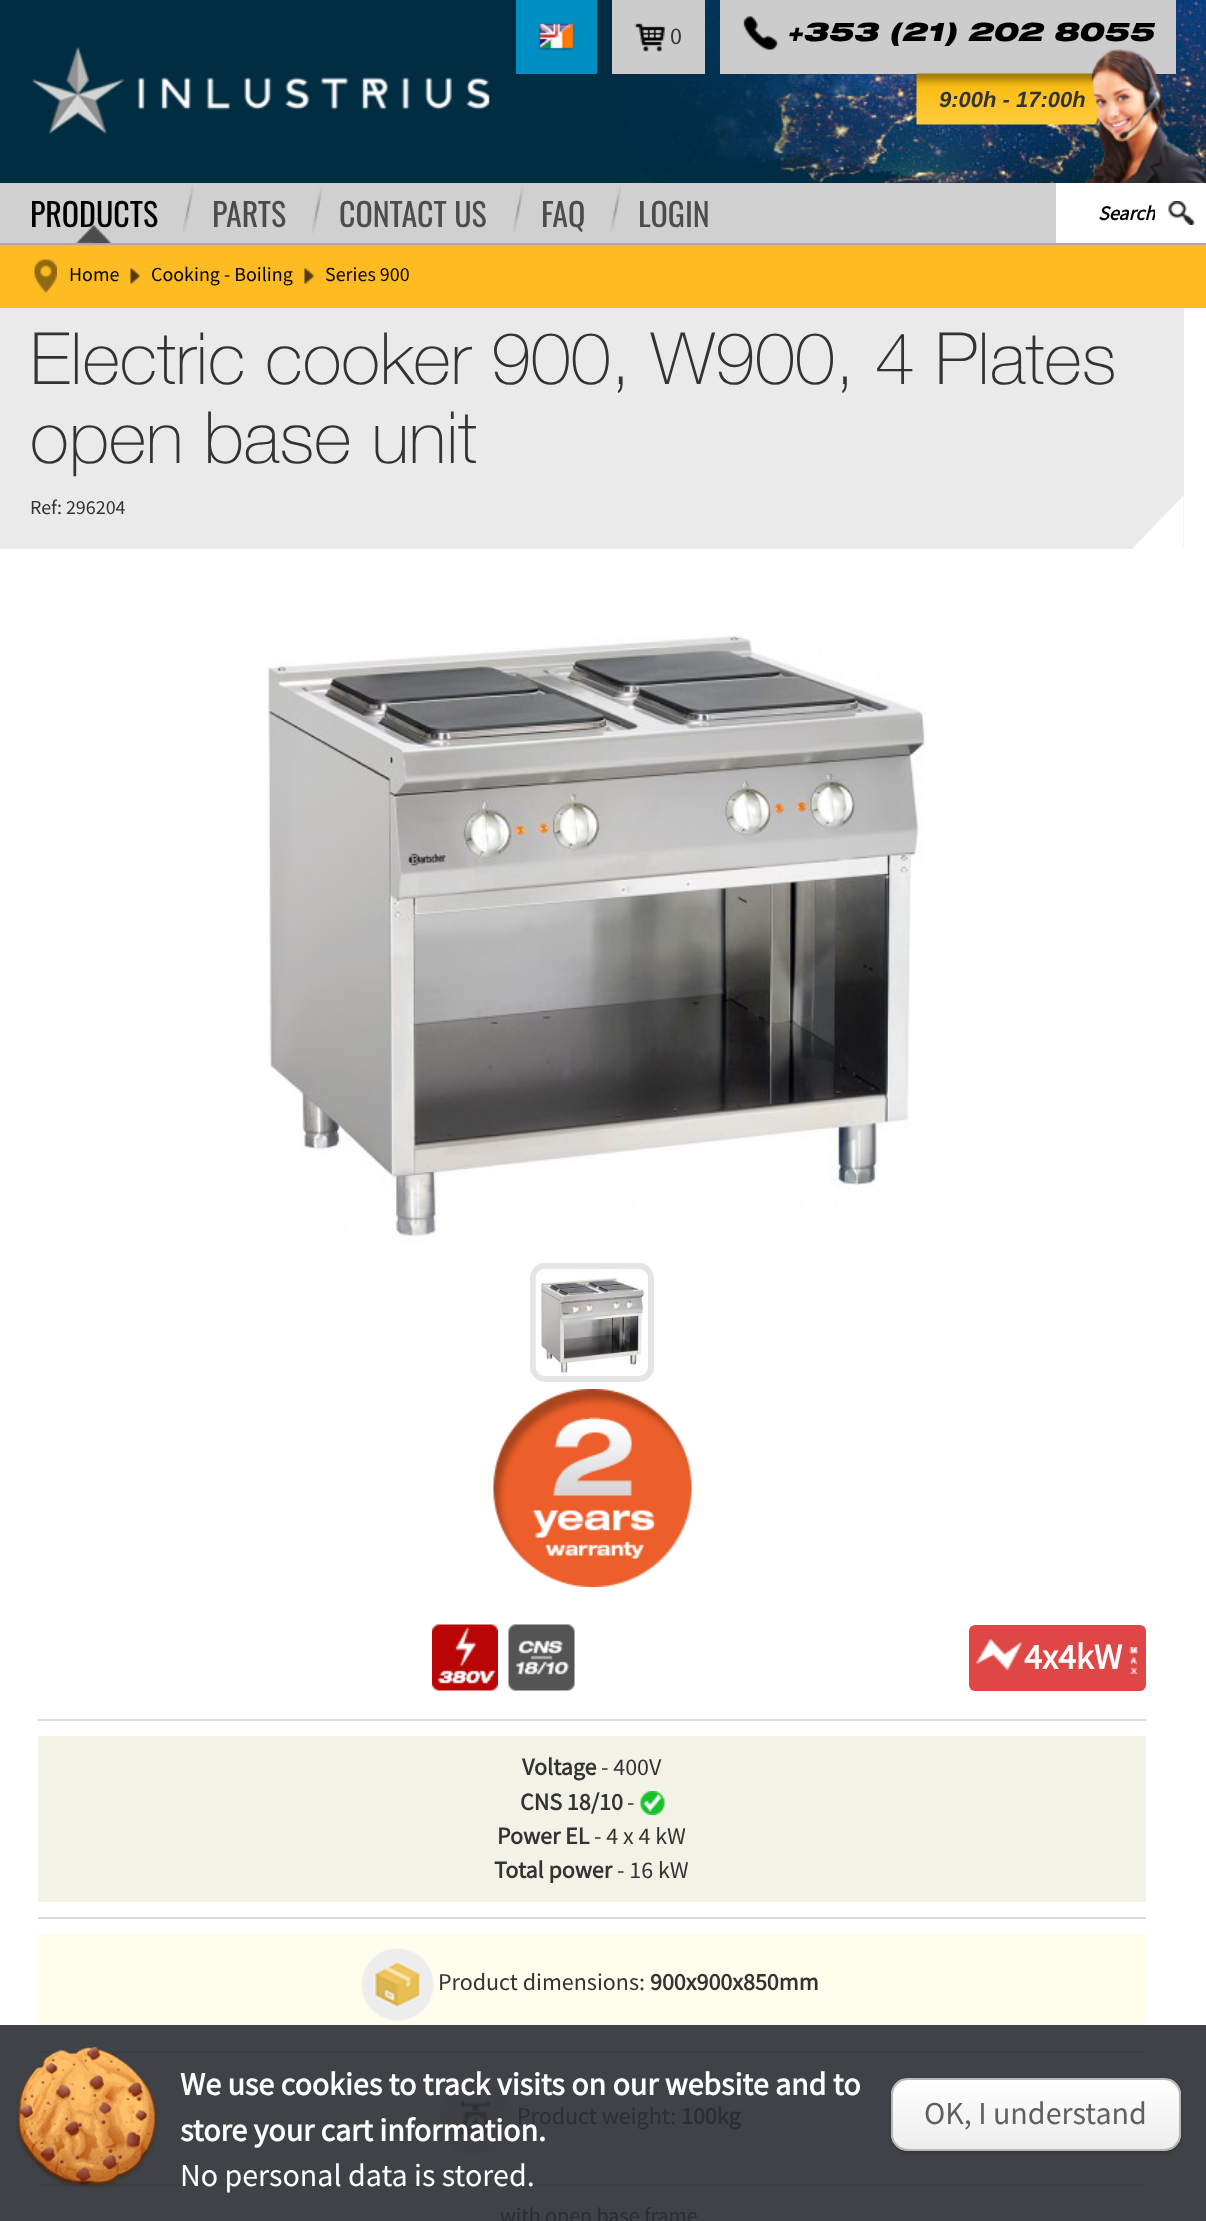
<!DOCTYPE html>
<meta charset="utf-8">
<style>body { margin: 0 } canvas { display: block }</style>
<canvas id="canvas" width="1206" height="2221"></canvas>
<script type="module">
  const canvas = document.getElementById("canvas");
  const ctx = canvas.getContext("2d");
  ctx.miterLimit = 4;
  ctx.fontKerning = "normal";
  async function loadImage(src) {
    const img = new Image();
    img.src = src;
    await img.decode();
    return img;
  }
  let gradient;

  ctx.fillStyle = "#002d42";
  ctx.fillRect(0, 0, 1206, 2221);
  ctx.drawImage(await loadImage("img1.png"), 617, 0, 589, 183);
  ctx.fillStyle = "#008fc3";
  ctx.fillRect(516, 0, 81, 74);
  ctx.drawImage(await loadImage("img2.png"), 538, 22, 37, 29);
  ctx.fillStyle = "#cccccc";
  ctx.fillRect(612, 0, 93, 74);
  ctx.drawImage(await loadImage("img3.png"), 634, 23, 31, 29);
  ctx.font = "24px Source Sans Pro";
  ctx.fillStyle = "#333333";
  ctx.fillText("0", 670, 44);
  ctx.fillStyle = "#cccccc";
  ctx.fillRect(720, 0, 456, 74);
  ctx.drawImage(await loadImage("img4.png"), 743, 16, 35, 34);
  ctx.font = "italic 900 26px Helvetica Neue";
  ctx.fillStyle = "#000000";
  ctx.fillText("+353 (21) 202 8055", 787, 41);
  ctx.drawImage(await loadImage("img5.png"), 32, 46, 458, 88);
  ctx.drawImage(await loadImage("img6.png"), 916, 73, 185, 52);
  ctx.font = "italic bold 22px Liberation Sans";
  ctx.fillStyle = "#333333";
  ctx.fillText("9:00h - 17:00h", 939, 107);
  ctx.drawImage(await loadImage("img7.png"), 1084, 49, 122, 134);
  ctx.fillStyle = "#d0d0d0";
  ctx.fillRect(0, 183, 1056, 60);
  ctx.drawImage(await loadImage("img8.png"), 76, 225, 35, 18);
  ctx.font = "32px Oswald";
  ctx.fillStyle = "#000000";
  ctx.fillText("PRODUCTS", 30, 227);
  ctx.drawImage(await loadImage("img9.png"), 183, 185, 11, 49);
  ctx.fillStyle = "#4c4c4c";
  ctx.fillText("PARTS", 212, 227);
  ctx.drawImage(await loadImage("img10.png"), 312, 185, 11, 49);
  ctx.fillText("CONTACT US", 339, 227);
  ctx.drawImage(await loadImage("img11.png"), 513, 185, 11, 49);
  ctx.fillText("FAQ", 541, 227);
  ctx.drawImage(await loadImage("img12.png"), 610, 185, 11, 49);
  ctx.fillText("LOGIN", 638, 227);
  ctx.fillStyle = "#ffffff";
  ctx.fillRect(1056, 183, 150, 60);
  ctx.drawImage(await loadImage("img13.png"), 1168, 201, 27, 24);
  ctx.save();
  ctx.beginPath();
  ctx.rect(1067, 201, 88, 26);
  ctx.clip();
  ctx.font = "italic bold 20px Source Sans Pro";
  ctx.fillStyle = "#000000";
  ctx.fillText("Search", 1098, 220);
  ctx.restore();
  ctx.fillStyle = "#ffbb22";
  ctx.fillRect(0, 245, 1206, 63);
  ctx.fillStyle = "#a9a9a9";
  ctx.fillRect(0, 243, 1206, 2);
  ctx.drawImage(await loadImage("img14.png"), 34, 259, 23, 34);
  ctx.font = "20px Source Sans Pro";
  ctx.fillStyle = "#000000";
  ctx.fillText("Home", 69, 281);
  ctx.drawImage(await loadImage("img15.png"), 130, 268, 10, 16);
  ctx.fillText("Cooking - Boiling", 151, 281);
  ctx.drawImage(await loadImage("img15.png"), 304, 268, 10, 16);
  ctx.fillText("Series 900", 325, 281);
  ctx.fillStyle = "#ffffff";
  ctx.fillRect(0, 308, 1206, 1717);
  ctx.fillStyle = "#3f4247";
  ctx.fillRect(0, 2025, 1206, 196);
  ctx.fillStyle = "#eaeaea";
  ctx.fillRect(0, 308, 1184, 241);
  ctx.drawImage(await loadImage("img16.png"), 1132, 496, 52, 53);
  ctx.font = "200 72px Helvetica Neue";
  ctx.fillStyle = "#333333";
  ctx.fillText("Electric cooker 900, W900, 4 Plates", 30, 384);
  ctx.fillText("open base unit", 30, 463);
  ctx.font = "20px Source Sans Pro";
  ctx.fillText("Ref: 296204", 30, 514);
  ctx.drawImage(await loadImage("img17.png"), 267, 635, 659, 609);
  ctx.beginPath();
  ctx.roundRect(533, 1266, 118, 113, 12);
  ctx.strokeStyle = "#e5e5e5";
  ctx.lineWidth = 6;
  ctx.stroke();
  ctx.drawImage(await loadImage("img18.png"), 535, 1269, 113, 104);
  ctx.drawImage(await loadImage("img19.png"), 493, 1389, 199, 198);
  ctx.drawImage(await loadImage("img20.png"), 432, 1624, 66, 67);
  ctx.drawImage(await loadImage("img21.png"), 508, 1624, 67, 67);
  ctx.fillStyle = "#df4646";
  ctx.beginPath();
  ctx.roundRect(969, 1625, 177, 66, 6);
  ctx.fill();
  ctx.drawImage(await loadImage("img22.png"), 976, 1639, 46, 31);
  ctx.font = "bold 36px Source Sans Pro";
  ctx.fillStyle = "#ffffff";
  ctx.fillText("4x4kW", 1024, 1669);
  ctx.drawImage(await loadImage("img23.png"), 1129, 1647, 9, 27);
  ctx.fillStyle = "#d9d9d9";
  ctx.fillRect(38, 1719, 1108, 2);
  ctx.fillStyle = "#f3f2e6";
  ctx.fillRect(38, 1736, 1108, 166);
  ctx.font = "bold 24px Source Sans Pro";
  ctx.fillStyle = "#333333";
  ctx.fillText("Voltage", 522, 1775);
  ctx.font = "24px Source Sans Pro";
  ctx.fillText("- 400V", 601, 1775);
  ctx.font = "bold 24px Source Sans Pro";
  ctx.fillText("CNS 18/10", 520, 1810);
  ctx.font = "24px Source Sans Pro";
  ctx.fillText("-", 627, 1810);
  ctx.drawImage(await loadImage("img24.png"), 640, 1791, 25, 24);
  ctx.font = "bold 24px Source Sans Pro";
  ctx.fillText("Power EL", 497, 1844);
  ctx.font = "24px Source Sans Pro";
  ctx.fillText("- 4 x 4 kW", 594, 1844);
  ctx.font = "bold 24px Source Sans Pro";
  ctx.fillText("Total power", 494, 1878);
  ctx.font = "24px Source Sans Pro";
  ctx.fillText("- 16 kW", 617, 1878);
  ctx.fillStyle = "#d9d9d9";
  ctx.fillRect(38, 1917, 1108, 2);
  ctx.fillStyle = "#fffeed";
  ctx.fillRect(38, 1934, 1108, 91);
  ctx.drawImage(await loadImage("img25.png"), 361, 1948, 73, 73);
  ctx.fillStyle = "#333333";
  ctx.fillText("Product dimensions:", 438, 1990);
  ctx.font = "bold 24px Source Sans Pro";
  ctx.fillText("900x900x850mm", 650, 1990);
  ctx.fillStyle = "#3c3e43";
  ctx.fillRect(38, 2051, 1108, 2);
  ctx.drawImage(await loadImage("img26.png"), 439, 2082, 73, 72);
  ctx.font = "24px Source Sans Pro";
  ctx.fillStyle = "#2b2e32";
  ctx.fillText("Product weight:", 517, 2124);
  ctx.font = "bold 24px Source Sans Pro";
  ctx.fillText("100kg", 681, 2124);
  ctx.fillStyle = "#3c3e43";
  ctx.fillRect(38, 2184, 1108, 2);
  ctx.font = "22px Source Sans Pro";
  ctx.fillStyle = "#2b2e32";
  ctx.fillText("with open base frame", 500, 2223);
  ctx.drawImage(await loadImage("img27.png"), 16, 2046, 142, 142);
  ctx.font = "bold 32px Source Sans Pro";
  ctx.fillStyle = "#ffffff";
  ctx.fillText("We use cookies to track visits on our website and to", 180, 2095);
  ctx.fillText("store your cart information.", 180, 2141);
  ctx.fillStyle = "rgba(0, 0, 0, 0.2)";
  ctx.filter = "blur(1.5px)";
  ctx.beginPath();
  ctx.roundRect(891, 2079, 290, 74, 17);
  ctx.fill();
  ctx.filter = "none";
  ctx.save();
  ctx.beginPath();
  ctx.roundRect(891, 2078, 290, 73, 17);
  ctx.clip();
  gradient = ctx.createLinearGradient(893, 2079, 893, 2150);
  gradient.addColorStop(0, "#ffffff");
  gradient.addColorStop(1, "#ededed");
  ctx.fillStyle = gradient;
  ctx.fillRect(891, 2079, 290, 71);
  ctx.restore();
  ctx.beginPath();
  ctx.roundRect(892, 2079, 288, 71, 16);
  ctx.strokeStyle = "#b7b7b7";
  ctx.lineWidth = 2;
  ctx.stroke();
  ctx.font = "32px Source Sans Pro";
  ctx.fillStyle = "#606060";
  ctx.fillText("OK, I understand", 924, 2124);
  ctx.fillStyle = "#ffffff";
  ctx.fillText("No personal data is stored.", 180, 2186);
</script>
